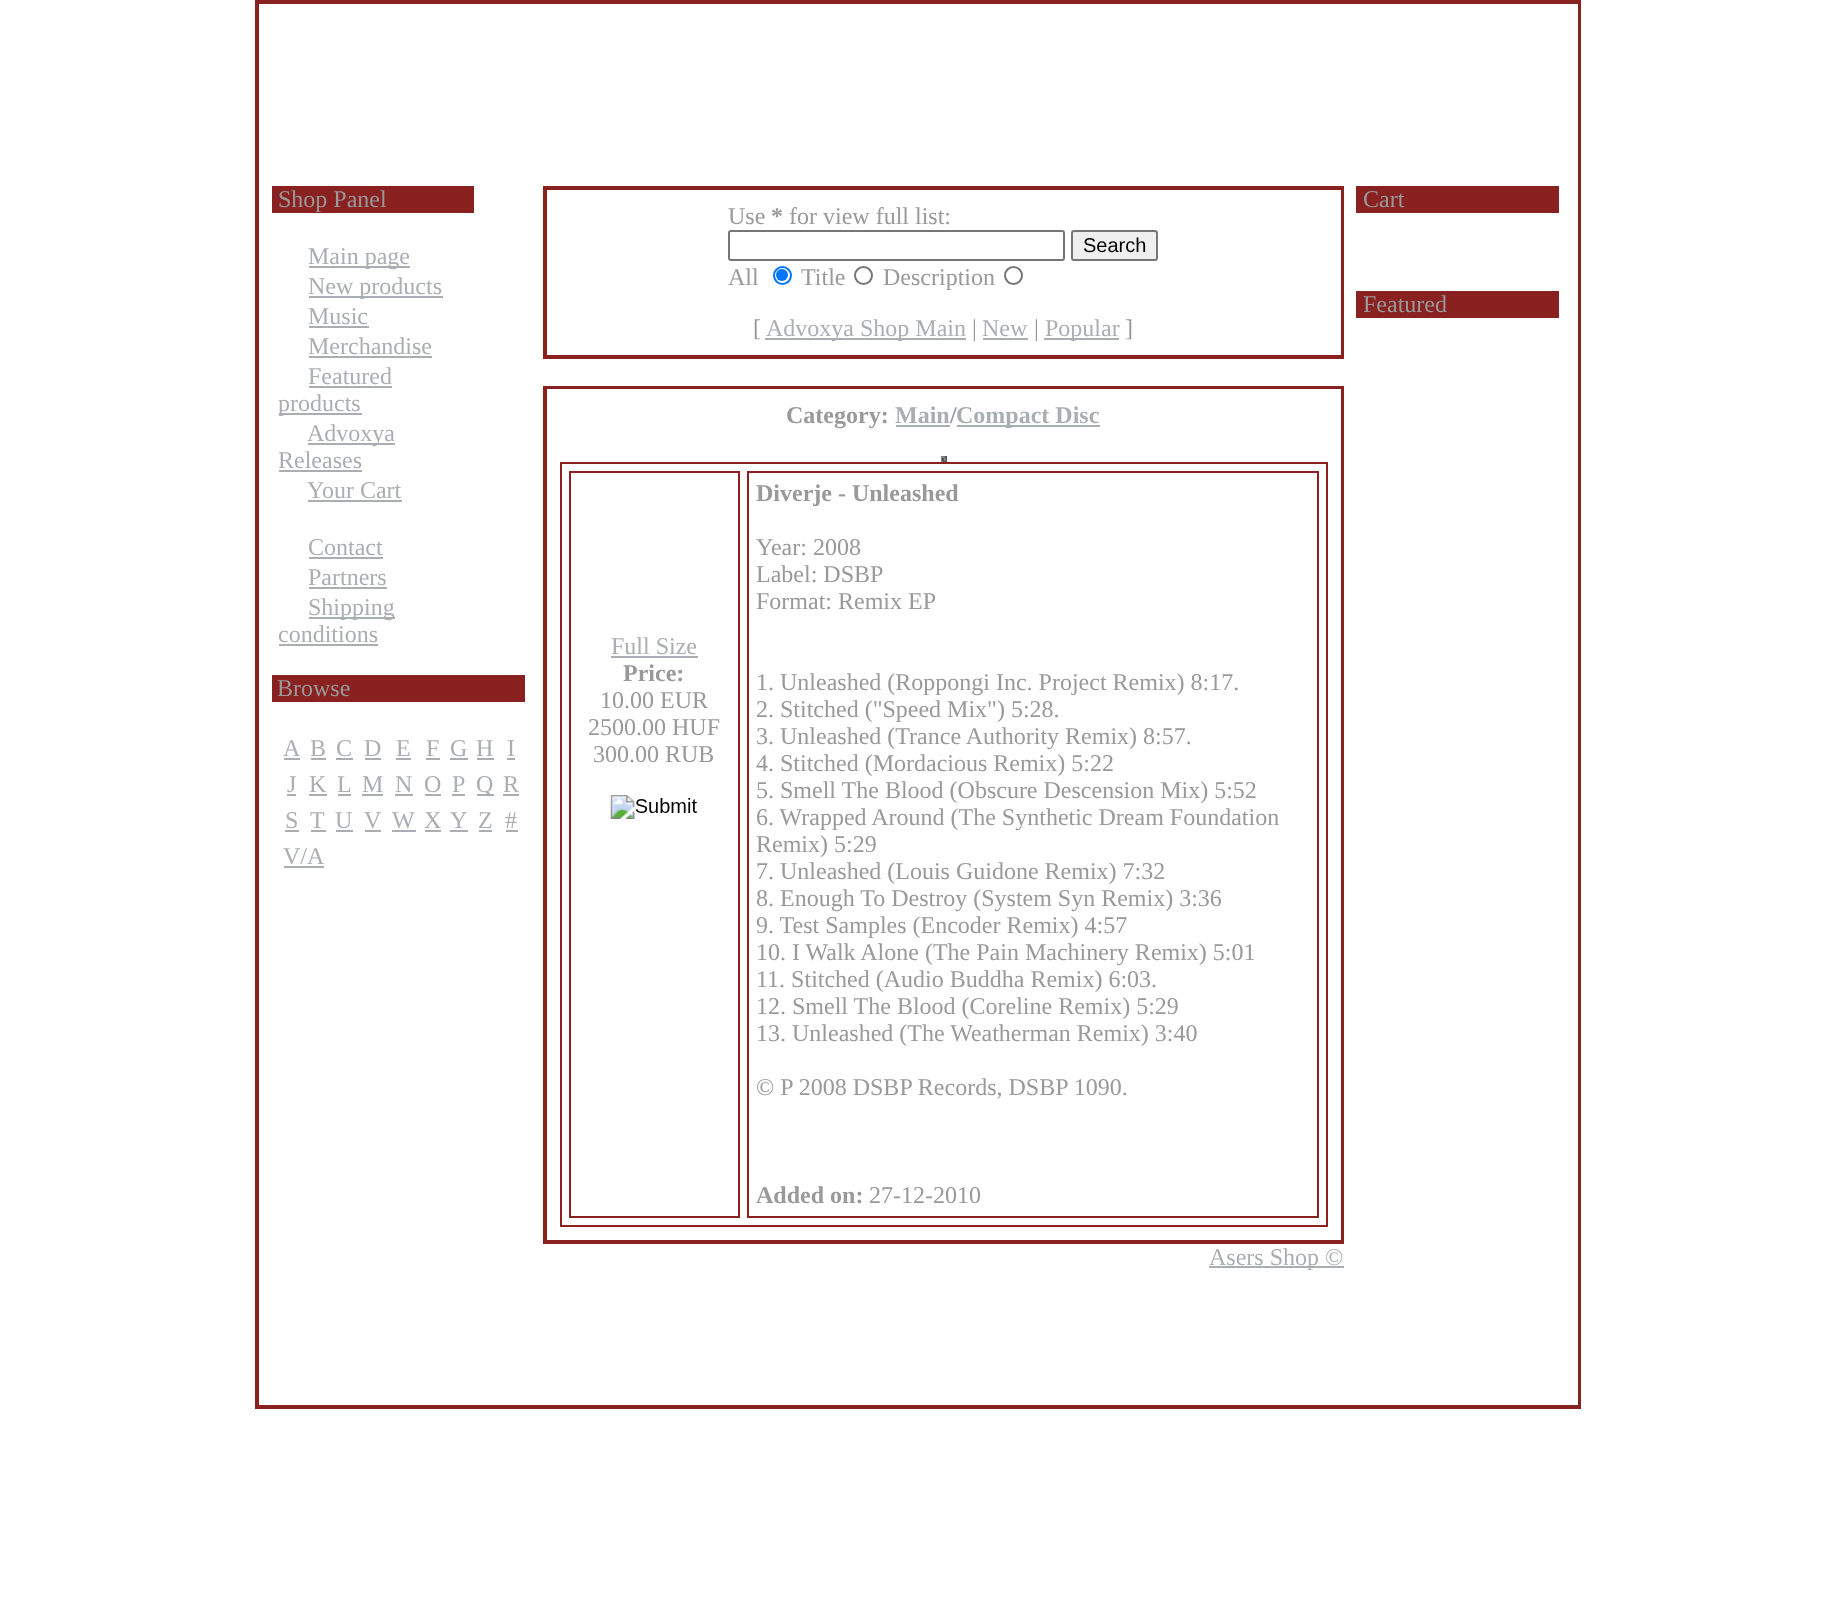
<!DOCTYPE html>
<meta charset="utf-8">
<style>body { margin: 0 } canvas { display: block }</style>
<canvas id="canvas" width="1836" height="1610"></canvas>
<script type="module">
  const canvas = document.getElementById("canvas");
  const ctx = canvas.getContext("2d");
  ctx.miterLimit = 4;
  ctx.fontKerning = "normal";
  async function loadImage(src) {
    const img = new Image();
    img.src = src;
    await img.decode();
    return img;
  }

  ctx.fillStyle = "#ffffff";
  ctx.fillRect(0, 0, 1836, 1610);
  ctx.strokeStyle = "#892121";
  ctx.lineWidth = 2;
  ctx.strokeRect(256, 1, 1324, 1407);
  ctx.strokeRect(258, 3, 1321, 1403);
  ctx.fillStyle = "#892121";
  ctx.fillRect(272, 186, 202, 27);
  ctx.font = "24px Liberation Serif";
  ctx.fillStyle = "#999999";
  ctx.fillText("Shop Panel", 278, 207);
  ctx.fillStyle = "#aaaeb3";
  ctx.fillRect(309, 266, 101, 2);
  ctx.fillText("Main page", 308, 264);
  ctx.fillRect(309, 296, 134, 2);
  ctx.fillText("New products", 308, 294);
  ctx.fillText("Music", 308, 324);
  ctx.fillRect(309, 326, 60, 2);
  ctx.fillText("Merchandise", 308, 354);
  ctx.fillRect(309, 356, 123, 2);
  ctx.fillText("Featured", 308, 384);
  ctx.fillRect(309, 386, 83, 2);
  ctx.fillRect(279, 413, 83, 2);
  ctx.fillText("products", 278, 411);
  ctx.fillRect(308, 443, 87, 2);
  ctx.fillText("Advoxya", 307, 441);
  ctx.fillText("Releases", 278, 468);
  ctx.fillRect(279, 470, 83, 2);
  ctx.fillText("Your Cart", 307, 498);
  ctx.fillRect(308, 500, 94, 2);
  ctx.fillText("Contact", 308, 555);
  ctx.fillRect(309, 557, 74, 2);
  ctx.fillText("Partners", 308, 585);
  ctx.fillRect(309, 587, 78, 2);
  ctx.fillRect(309, 617, 86, 2);
  ctx.fillText("Shipping", 308, 615);
  ctx.fillText("conditions", 278, 642);
  ctx.fillRect(279, 644, 99, 2);
  ctx.fillStyle = "#892121";
  ctx.fillRect(272, 675, 253, 27);
  ctx.fillStyle = "#999999";
  ctx.fillText("Browse", 277, 696);
  ctx.fillStyle = "#aaaeb3";
  ctx.fillText("A", 283, 756);
  ctx.fillRect(284, 758, 16, 2);
  ctx.fillText("B", 310, 756);
  ctx.fillRect(311, 758, 15, 2);
  ctx.fillText("C", 336, 756);
  ctx.fillRect(336, 758, 17, 2);
  ctx.fillText("D", 364, 756);
  ctx.fillRect(365, 758, 16, 2);
  ctx.fillText("E", 396, 756);
  ctx.fillRect(396, 758, 15, 2);
  ctx.fillText("F", 426, 756);
  ctx.fillRect(426, 758, 14, 2);
  ctx.fillText("G", 450, 756);
  ctx.fillRect(450, 758, 18, 2);
  ctx.fillText("H", 476, 756);
  ctx.fillRect(477, 758, 17, 2);
  ctx.fillText("I", 507, 756);
  ctx.fillRect(507, 758, 8, 2);
  ctx.fillText("J", 287, 792);
  ctx.fillRect(287, 794, 9, 2);
  ctx.fillText("K", 309, 792);
  ctx.fillRect(309, 794, 18, 2);
  ctx.fillText("L", 337, 792);
  ctx.fillRect(338, 794, 13, 2);
  ctx.fillText("M", 362, 792);
  ctx.fillRect(362, 794, 21, 2);
  ctx.fillText("N", 395, 792);
  ctx.fillRect(395, 794, 18, 2);
  ctx.fillText("O", 424, 792);
  ctx.fillRect(425, 794, 16, 2);
  ctx.fillText("P", 452, 792);
  ctx.fillRect(452, 794, 13, 2);
  ctx.fillRect(477, 794, 17, 2);
  ctx.fillText("Q", 476, 792);
  ctx.fillText("R", 503, 792);
  ctx.fillRect(503, 794, 16, 2);
  ctx.fillText("S", 285, 828);
  ctx.fillRect(285, 830, 14, 2);
  ctx.fillText("T", 310, 828);
  ctx.fillRect(311, 830, 15, 2);
  ctx.fillText("U", 335, 828);
  ctx.fillRect(336, 830, 17, 2);
  ctx.fillText("V", 364, 828);
  ctx.fillRect(365, 830, 16, 2);
  ctx.fillText("W", 392, 828);
  ctx.fillRect(392, 830, 24, 2);
  ctx.fillText("X", 424, 828);
  ctx.fillRect(425, 830, 16, 2);
  ctx.fillText("Y", 450, 828);
  ctx.fillRect(450, 830, 18, 2);
  ctx.fillText("Z", 478, 828);
  ctx.fillRect(479, 830, 13, 2);
  ctx.fillText("#", 505, 828);
  ctx.fillRect(506, 830, 12, 2);
  ctx.fillText("V/A", 283, 864);
  ctx.fillRect(284, 866, 40, 2);
  ctx.strokeRect(544, 187, 799, 171);
  ctx.strokeRect(546, 189, 796, 167);
  ctx.fillStyle = "#999999";
  ctx.fillText("Use", 728, 224);
  ctx.font = "bold 24px Liberation Serif";
  ctx.fillText("*", 771, 224);
  ctx.font = "24px Liberation Serif";
  ctx.fillText("for view full list:", 789, 224);
  ctx.beginPath();
  ctx.roundRect(729, 231, 335, 29, 2);
  ctx.strokeStyle = "#767676";
  ctx.stroke();
  ctx.fillStyle = "#efefef";
  ctx.beginPath();
  ctx.roundRect(1072, 231, 85, 29, 2);
  ctx.fill();
  ctx.stroke();
  ctx.font = "20px Liberation Sans";
  ctx.fillStyle = "#000000";
  ctx.fillText("Search", 1083, 252);
  ctx.font = "24px Liberation Serif";
  ctx.fillStyle = "#999999";
  ctx.fillText("All", 728, 285);
  ctx.beginPath();
  ctx.arc(782.5, 275.5, 8.5, 0, Math.PI * 2);
  ctx.strokeStyle = "#0075ff";
  ctx.stroke();
  ctx.fillStyle = "#0075ff";
  ctx.beginPath();
  ctx.arc(782, 275, 6, 0, Math.PI * 2);
  ctx.fill();
  ctx.fillStyle = "#999999";
  ctx.fillText("Title", 801, 285);
  ctx.beginPath();
  ctx.arc(863.5, 275.5, 8.5, 0, Math.PI * 2);
  ctx.strokeStyle = "#767676";
  ctx.stroke();
  ctx.fillText("Description", 883, 285);
  ctx.beginPath();
  ctx.arc(1013.5, 275.5, 8.5, 0, Math.PI * 2);
  ctx.stroke();
  ctx.fillText("[", 753, 336);
  ctx.fillStyle = "#aaaeb3";
  ctx.fillRect(765, 338, 201, 2);
  ctx.fillText("Advoxya Shop Main", 766, 336);
  ctx.fillStyle = "#999999";
  ctx.fillText("|", 972, 336);
  ctx.fillStyle = "#aaaeb3";
  ctx.fillText("New", 982, 336);
  ctx.fillRect(983, 338, 45, 2);
  ctx.fillStyle = "#999999";
  ctx.fillText("|", 1034, 336);
  ctx.fillStyle = "#aaaeb3";
  ctx.fillRect(1044, 338, 75, 2);
  ctx.fillText("Popular", 1045, 336);
  ctx.fillStyle = "#999999";
  ctx.fillText("]", 1125, 336);
  ctx.strokeStyle = "#892121";
  ctx.strokeRect(544, 387, 799, 856);
  ctx.strokeRect(546, 388, 796, 853);
  ctx.font = "bold 24px Liberation Serif";
  ctx.fillText("Category:", 786, 423);
  ctx.fillStyle = "#aaaeb3";
  ctx.fillText("Main", 895, 423);
  ctx.fillStyle = "#999999";
  ctx.fillText("/", 950, 423);
  ctx.fillStyle = "#aaaeb3";
  ctx.fillRect(896, 425, 54, 2);
  ctx.fillRect(957, 425, 143, 2);
  ctx.fillText("Compact Disc", 956, 423);
  ctx.fillStyle = "#808080";
  ctx.fillRect(941, 456, 6, 2);
  ctx.fillStyle = "#555555";
  ctx.fillRect(945, 456, 2, 6);
  ctx.fillRect(941, 461, 6, 1);
  ctx.fillStyle = "#808080";
  ctx.fillRect(941, 456, 2, 6);
  ctx.fillRect(944, 458, 2, 3);
  ctx.fillRect(942, 459, 3, 2);
  ctx.fillStyle = "#555555";
  ctx.fillRect(942, 458, 2, 3);
  ctx.strokeRect(561, 463, 766, 763);
  ctx.strokeRect(570, 472, 169, 745);
  ctx.font = "24px Liberation Serif";
  ctx.fillStyle = "#aaaeb3";
  ctx.fillText("Full Size", 611, 654);
  ctx.fillRect(611, 656, 87, 2);
  ctx.font = "bold 24px Liberation Serif";
  ctx.fillStyle = "#999999";
  ctx.fillText("Price:", 623, 681);
  ctx.font = "24px Liberation Serif";
  ctx.fillText("10.00 EUR", 600, 708);
  ctx.fillText("2500.00 HUF", 588, 735);
  ctx.fillText("300.00 RUB", 593, 762);
  ctx.drawImage(await loadImage("img1.png"), 610, 795, 87, 24);
  ctx.strokeRect(748, 472, 570, 745);
  ctx.font = "bold 24px Liberation Serif";
  ctx.fillText("Diverje - Unleashed", 756, 501);
  ctx.font = "24px Liberation Serif";
  ctx.fillText("Year: 2008", 756, 555);
  ctx.fillText("Label: DSBP", 756, 582);
  ctx.fillText("Format: Remix EP", 756, 609);
  ctx.fillText("1. Unleashed (Roppongi Inc. Project Remix) 8:17.", 756, 690);
  ctx.fillText("2. Stitched (\"Speed Mix\") 5:28.", 756, 717);
  ctx.fillText("3. Unleashed (Trance Authority Remix) 8:57.", 756, 744);
  ctx.fillText("4. Stitched (Mordacious Remix) 5:22", 756, 771);
  ctx.fillText("5. Smell The Blood (Obscure Descension Mix) 5:52", 756, 798);
  ctx.fillText("6. Wrapped Around (The Synthetic Dream Foundation", 756, 825);
  ctx.fillText("Remix) 5:29", 756, 852);
  ctx.fillText("7. Unleashed (Louis Guidone Remix) 7:32", 756, 879);
  ctx.fillText("8. Enough To Destroy (System Syn Remix) 3:36", 756, 906);
  ctx.fillText("9. Test Samples (Encoder Remix) 4:57", 756, 933);
  ctx.fillText("10. I Walk Alone (The Pain Machinery Remix) 5:01", 756, 960);
  ctx.fillText("11. Stitched (Audio Buddha Remix) 6:03.", 756, 987);
  ctx.fillText("12. Smell The Blood (Coreline Remix) 5:29", 756, 1014);
  ctx.fillText("13. Unleashed (The Weatherman Remix) 3:40", 756, 1041);
  ctx.fillText("© P 2008 DSBP Records, DSBP 1090.", 756, 1095);
  ctx.font = "bold 24px Liberation Serif";
  ctx.fillText("Added on:", 756, 1203);
  ctx.font = "24px Liberation Serif";
  ctx.fillText("27-12-2010", 869, 1203);
  ctx.fillStyle = "#aaaeb3";
  ctx.fillRect(1209, 1266, 135, 2);
  ctx.fillText("Asers Shop ©", 1209, 1265);
  ctx.fillStyle = "#892121";
  ctx.fillRect(1356, 186, 203, 27);
  ctx.fillStyle = "#999999";
  ctx.fillText("Cart", 1363, 207);
  ctx.fillStyle = "#892121";
  ctx.fillRect(1356, 291, 203, 27);
  ctx.fillStyle = "#999999";
  ctx.fillText("Featured", 1363, 312);
</script>
